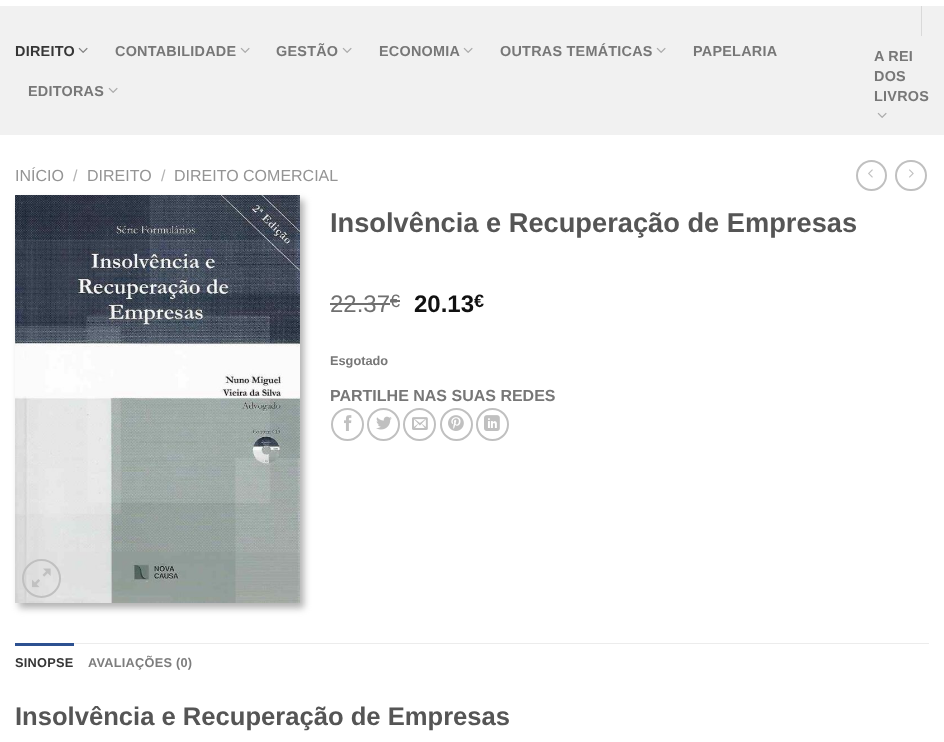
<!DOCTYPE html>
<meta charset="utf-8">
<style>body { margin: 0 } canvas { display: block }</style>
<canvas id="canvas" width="944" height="742"></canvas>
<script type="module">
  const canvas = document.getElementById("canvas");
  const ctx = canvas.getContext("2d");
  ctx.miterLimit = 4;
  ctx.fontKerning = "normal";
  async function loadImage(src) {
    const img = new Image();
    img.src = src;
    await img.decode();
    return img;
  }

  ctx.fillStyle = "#ffffff";
  ctx.fillRect(0, 0, 944, 742);
  ctx.fillStyle = "#f1f1f1";
  ctx.fillRect(0, 6, 944, 129);
  ctx.letterSpacing = "0.25px";
  ctx.font = "bold 14.4px Liberation Sans";
  ctx.fillStyle = "#363636";
  ctx.fillText("DIREITO", 15, 56);
  ctx.drawImage(await loadImage("img1.png"), 78, 47, 10, 6);
  ctx.fillStyle = "#777777";
  ctx.fillText("CONTABILIDADE", 115, 56);
  ctx.drawImage(await loadImage("img2.png"), 240, 47, 10, 6);
  ctx.fillText("GESTÃO", 276, 56);
  ctx.drawImage(await loadImage("img2.png"), 342, 47, 10, 6);
  ctx.fillText("ECONOMIA", 379, 56);
  ctx.drawImage(await loadImage("img2.png"), 463, 47, 10, 6);
  ctx.fillText("OUTRAS TEMÁTICAS", 500, 56);
  ctx.drawImage(await loadImage("img2.png"), 656, 47, 10, 6);
  ctx.fillText("PAPELARIA", 693, 56);
  ctx.fillText("EDITORAS", 28, 96);
  ctx.drawImage(await loadImage("img2.png"), 108, 87, 10, 6);
  ctx.fillStyle = "#d9d9d9";
  ctx.fillRect(921, 6, 1, 30);
  ctx.fillStyle = "#777777";
  ctx.fillText("A REI", 874, 61);
  ctx.fillText("DOS", 874, 81);
  ctx.fillText("LIVROS", 874, 101);
  ctx.drawImage(await loadImage("img2.png"), 877, 112, 10, 6);
  ctx.letterSpacing = "0px";
  ctx.font = "16px Liberation Sans";
  ctx.fillStyle = "#949494";
  ctx.fillText("INÍCIO", 15, 181);
  ctx.fillStyle = "#b2b2b2";
  ctx.fillText("/", 73, 181);
  ctx.fillStyle = "#949494";
  ctx.fillText("DIREITO", 87, 181);
  ctx.fillStyle = "#b2b2b2";
  ctx.fillText("/", 161, 181);
  ctx.fillStyle = "#949494";
  ctx.fillText("DIREITO COMERCIAL", 174, 181);
  ctx.beginPath();
  ctx.arc(871.5, 175.5, 14.5, 0, Math.PI * 2);
  ctx.strokeStyle = "#c0c0c0";
  ctx.lineWidth = 2;
  ctx.stroke();
  ctx.drawImage(await loadImage("img3.png"), 868, 169, 5, 9);
  ctx.beginPath();
  ctx.roundRect(896, 161, 30, 29, 14.5);
  ctx.stroke();
  ctx.drawImage(await loadImage("img4.png"), 909, 169, 5, 9);
  ctx.fillStyle = "#b2b2b2";
  ctx.filter = "blur(3.5px)";
  ctx.beginPath();
  ctx.rect(19, 200, 285, 408);
  ctx.fill();
  ctx.filter = "none";
  ctx.drawImage(await loadImage("img5.png"), 15, 195, 285, 408);
  ctx.beginPath();
  ctx.arc(41.5, 578.5, 18.5, 0, Math.PI * 2);
  ctx.stroke();
  ctx.drawImage(await loadImage("img6.png"), 32, 568, 19, 20);
  ctx.font = "bold 27.25px Liberation Sans";
  ctx.fillStyle = "#555555";
  ctx.fillText("Insolvência e Recuperação de Empresas", 330, 232);
  ctx.font = "24px Liberation Sans";
  ctx.fillStyle = "#707070";
  ctx.fillText("22.37", 330, 312);
  ctx.fillRect(330, 303, 60, 2);
  ctx.font = "18px Liberation Sans";
  ctx.fillText("€", 390, 307);
  ctx.fillRect(390, 300, 10, 2);
  ctx.font = "bold 24px Liberation Sans";
  ctx.fillStyle = "#111111";
  ctx.fillText("20.13", 414, 312);
  ctx.font = "bold 18px Liberation Sans";
  ctx.fillText("€", 474, 307);
  ctx.font = "bold 12.75px Liberation Sans";
  ctx.fillStyle = "#777777";
  ctx.fillText("Esgotado", 330, 365);
  ctx.font = "bold 16px Liberation Sans";
  ctx.fillText("PARTILHE NAS SUAS REDES", 330, 401);
  ctx.beginPath();
  ctx.arc(347.5, 424.5, 15.5, 0, Math.PI * 2);
  ctx.stroke();
  ctx.drawImage(await loadImage("img7.png"), 344, 415, 8, 16);
  ctx.beginPath();
  ctx.arc(383.5, 424.5, 15.5, 0, Math.PI * 2);
  ctx.stroke();
  ctx.drawImage(await loadImage("img8.png"), 376, 416, 16, 14);
  ctx.beginPath();
  ctx.arc(419.5, 424.5, 15.5, 0, Math.PI * 2);
  ctx.stroke();
  ctx.drawImage(await loadImage("img9.png"), 412, 417, 16, 13);
  ctx.beginPath();
  ctx.arc(456.5, 424.5, 15.5, 0, Math.PI * 2);
  ctx.stroke();
  ctx.drawImage(await loadImage("img10.png"), 448, 415, 16, 16);
  ctx.beginPath();
  ctx.arc(492.5, 424.5, 15.5, 0, Math.PI * 2);
  ctx.stroke();
  ctx.drawImage(await loadImage("img11.png"), 484, 415, 16, 16);
  ctx.fillStyle = "#ececec";
  ctx.fillRect(74, 643, 855, 1);
  ctx.fillStyle = "#2d5191";
  ctx.fillRect(15, 643, 59, 3);
  ctx.letterSpacing = "0.25px";
  ctx.font = "bold 12.75px Liberation Sans";
  ctx.fillStyle = "#363636";
  ctx.fillText("SINOPSE", 15, 667);
  ctx.fillStyle = "#7d7d7d";
  ctx.fillText("AVALIAÇÕES (0)", 88, 667);
  ctx.letterSpacing = "0px";
  ctx.font = "bold 25.6px Liberation Sans";
  ctx.fillStyle = "#555555";
  ctx.fillText("Insolvência e Recuperação de Empresas", 15, 725);
</script>
